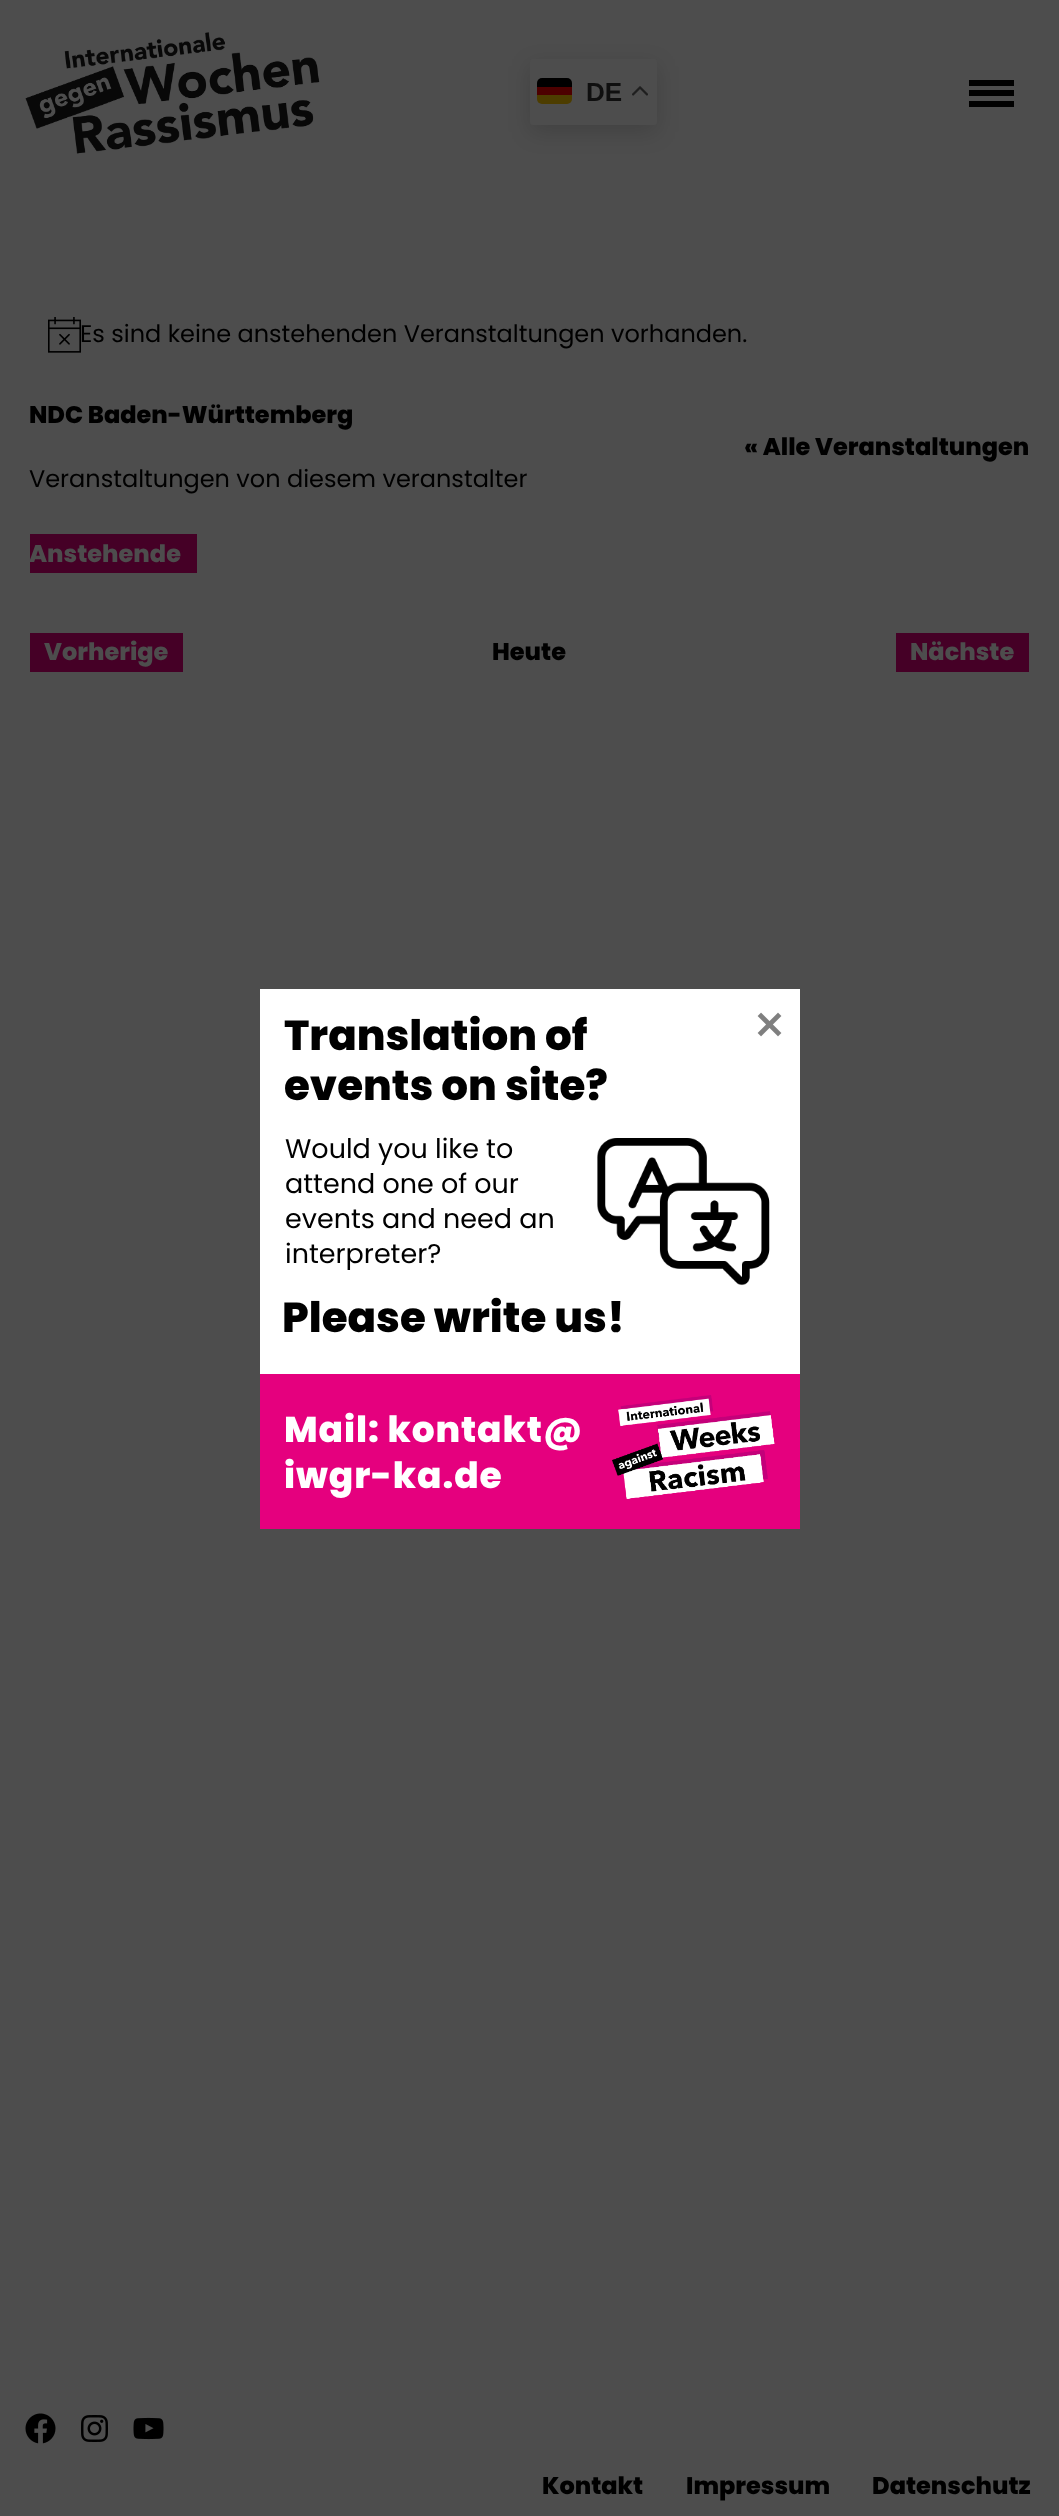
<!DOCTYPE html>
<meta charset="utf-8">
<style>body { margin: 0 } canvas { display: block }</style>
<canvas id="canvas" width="1059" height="2516"></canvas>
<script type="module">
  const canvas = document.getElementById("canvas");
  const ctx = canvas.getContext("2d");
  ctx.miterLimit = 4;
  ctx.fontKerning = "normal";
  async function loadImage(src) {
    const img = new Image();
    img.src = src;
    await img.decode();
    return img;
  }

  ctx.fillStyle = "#4d4d4d";
  ctx.fillRect(0, 0, 1059, 2516);
  ctx.drawImage(await loadImage("img1.png"), 25, 32, 295, 122);
  ctx.fillStyle = "rgba(0, 0, 0, 0.15)";
  ctx.filter = "blur(11px)";
  ctx.beginPath();
  ctx.roundRect(530, 66, 127, 66, 3);
  ctx.fill();
  ctx.filter = "none";
  ctx.fillStyle = "#4d4d4d";
  ctx.beginPath();
  ctx.roundRect(530, 59, 127, 66, 3);
  ctx.fill();
  ctx.fillStyle = "#4d3d00";
  ctx.beginPath();
  ctx.roundRect(537, 95, 35, 9, [0, 0, 5, 5]);
  ctx.fill();
  ctx.fillStyle = "#000000";
  ctx.beginPath();
  ctx.roundRect(537, 78, 35, 9, [5, 5, 0, 0]);
  ctx.fill();
  ctx.fillStyle = "#4d0000";
  ctx.fillRect(537, 87, 35, 8);
  ctx.font = "bold 26px Liberation Sans";
  ctx.fillStyle = "#0f0f0f";
  ctx.fillText("DE", 586, 101);
  ctx.drawImage(await loadImage("img2.png"), 632, 86, 16, 10);
  ctx.fillStyle = "#000000";
  ctx.fillRect(969, 80, 45, 6);
  ctx.fillRect(969, 90, 45, 6);
  ctx.fillRect(969, 101, 45, 6);
  ctx.drawImage(await loadImage("img3.png"), 48, 317, 33, 36);
  ctx.font = "24px Poppins";
  ctx.fillText("Es sind keine anstehenden Veranstaltungen vorhanden.", 80, 342);
  ctx.font = "800 24px Poppins";
  ctx.fillText("NDC Baden-Württemberg", 29, 423);
  ctx.fillText("« Alle Veranstaltungen", 744, 455);
  ctx.font = "24px Poppins";
  ctx.fillText("Veranstaltungen von diesem veranstalter", 29, 487);
  ctx.fillStyle = "#450026";
  ctx.fillRect(30, 534, 167, 39);
  ctx.font = "800 24px Poppins";
  ctx.fillStyle = "#4d4d4d";
  ctx.fillText("Anstehende", 29, 562);
  ctx.fillStyle = "#450026";
  ctx.fillRect(30, 633, 153, 39);
  ctx.fillStyle = "#4d4d4d";
  ctx.fillText("Vorherige", 44, 660);
  ctx.fillStyle = "#000000";
  ctx.fillText("Heute", 492, 660);
  ctx.fillStyle = "#450026";
  ctx.fillRect(896, 633, 133, 39);
  ctx.fillStyle = "#4d4d4d";
  ctx.fillText("Nächste", 910, 660);
  ctx.drawImage(await loadImage("img4.png"), 25, 2413, 31, 31);
  ctx.drawImage(await loadImage("img5.png"), 81, 2415, 27, 27);
  ctx.drawImage(await loadImage("img6.png"), 133, 2417, 31, 23);
  ctx.fillStyle = "#000000";
  ctx.fillText("Kontakt", 542, 2494);
  ctx.fillText("Impressum", 686, 2494);
  ctx.fillText("Datenschutz", 872, 2494);
  ctx.fillStyle = "#ffffff";
  ctx.fillRect(260, 989, 540, 385);
  ctx.font = "800 42px Poppins";
  ctx.fillStyle = "#000000";
  ctx.fillText("Translation of", 284, 1050);
  ctx.fillText("events on site?", 284, 1100);
  ctx.font = "27px Poppins";
  ctx.fillText("Would you like to", 285, 1158);
  ctx.fillText("attend one of our", 285, 1193);
  ctx.fillText("events and need an", 285, 1228);
  ctx.fillText("interpreter?", 285, 1263);
  ctx.drawImage(await loadImage("img7.png"), 597, 1138, 173, 148);
  ctx.font = "800 42px Poppins";
  ctx.fillText("Please write us!", 282, 1332);
  ctx.fillStyle = "#e5007e";
  ctx.fillRect(260, 1374, 540, 155);
  ctx.letterSpacing = "0.9px";
  ctx.font = "800 36px Poppins";
  ctx.fillStyle = "#ffffff";
  ctx.fillText("Mail: kontakt@", 284, 1442);
  ctx.fillText("iwgr-ka.de", 284, 1488);
  ctx.drawImage(await loadImage("img8.png"), 612, 1395, 163, 104);
  ctx.drawImage(await loadImage("img9.png"), 757, 1012, 25, 25);
</script>
